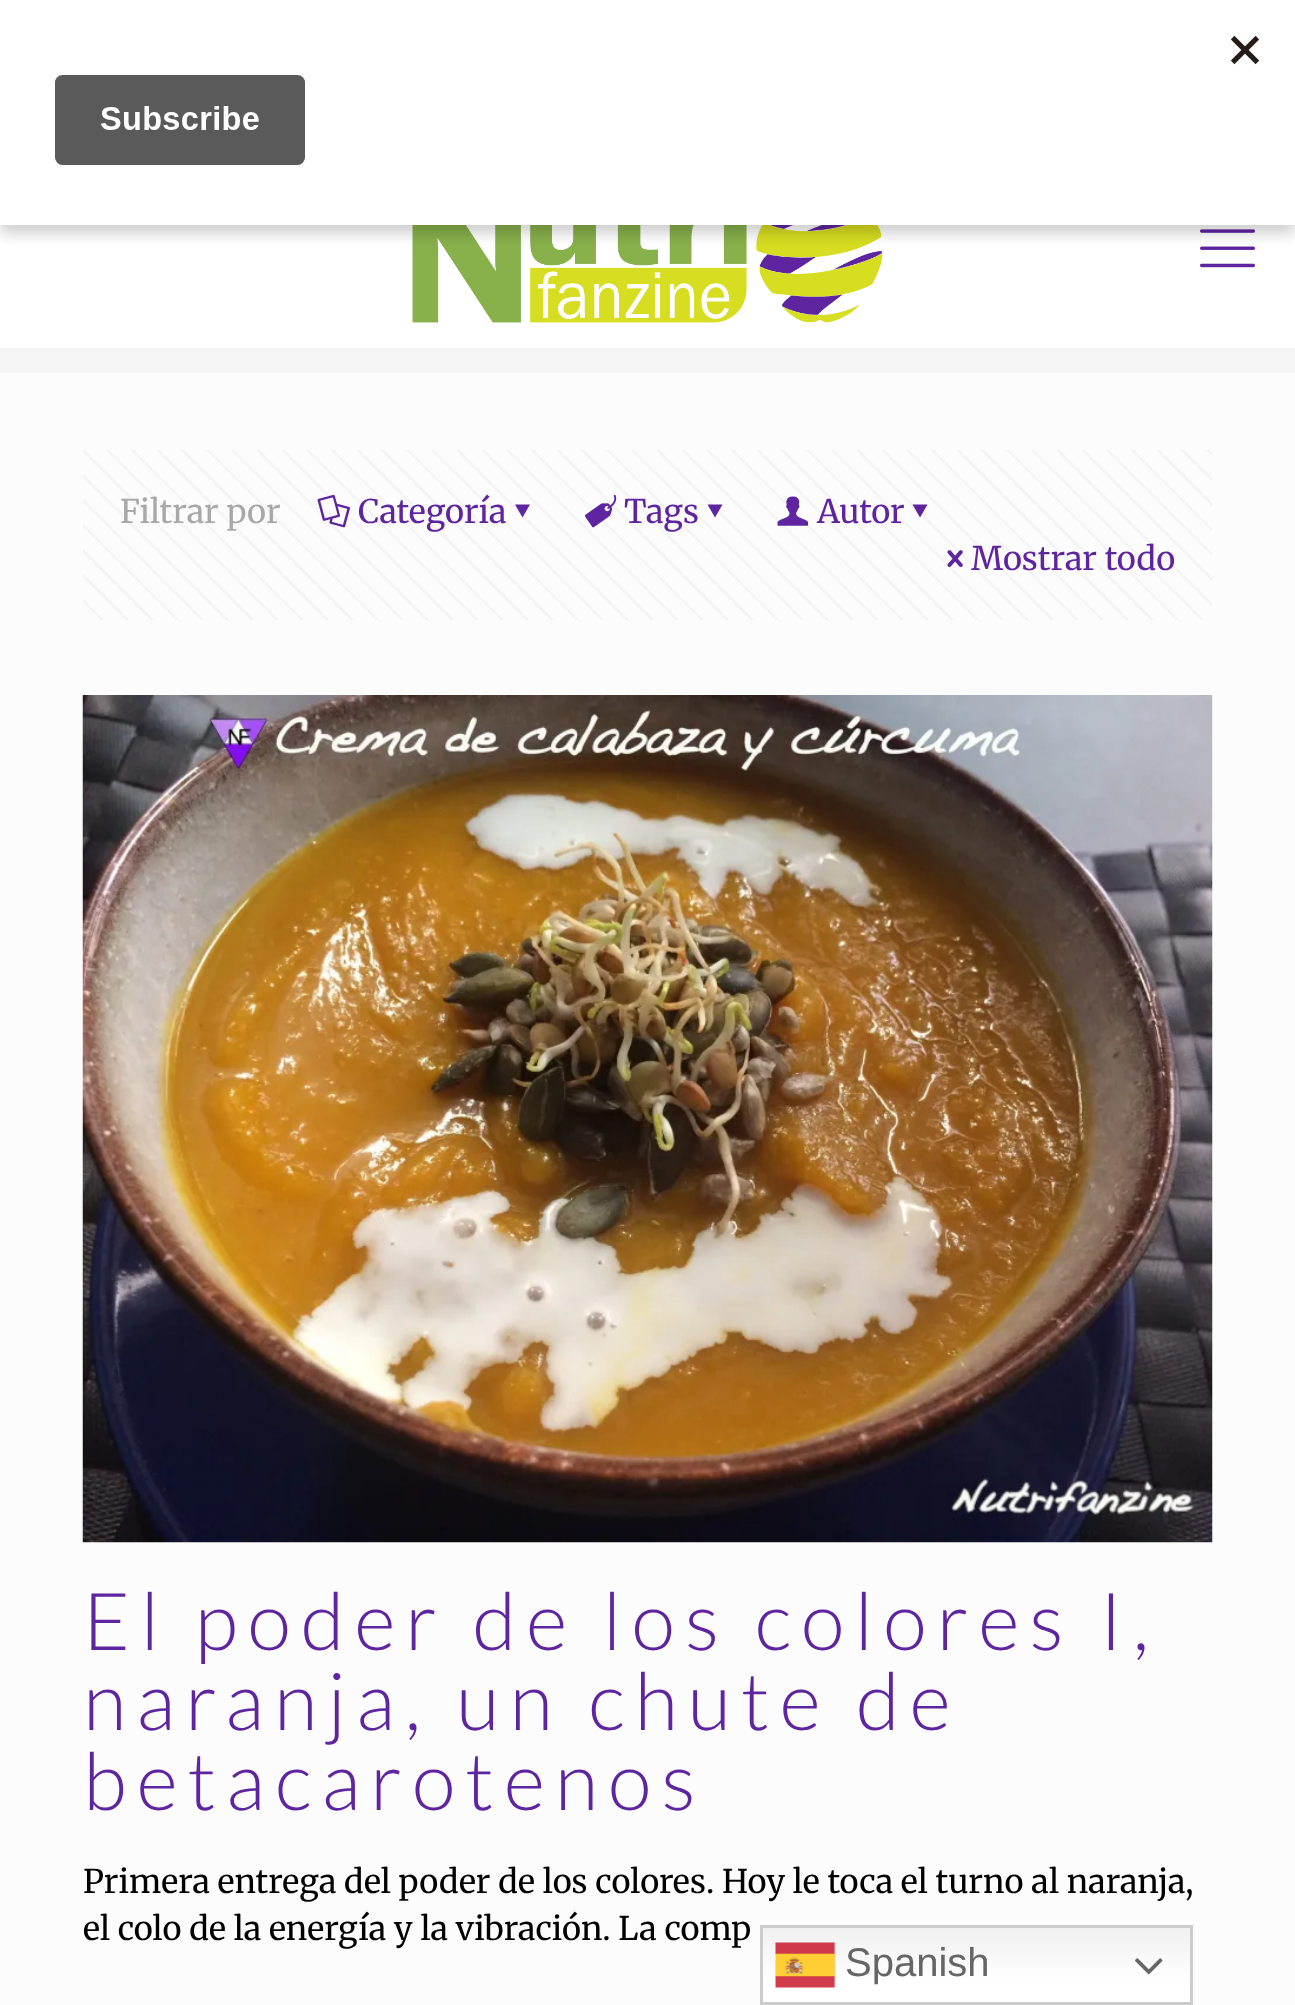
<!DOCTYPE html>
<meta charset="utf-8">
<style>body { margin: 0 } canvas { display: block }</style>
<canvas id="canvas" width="1295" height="2005"></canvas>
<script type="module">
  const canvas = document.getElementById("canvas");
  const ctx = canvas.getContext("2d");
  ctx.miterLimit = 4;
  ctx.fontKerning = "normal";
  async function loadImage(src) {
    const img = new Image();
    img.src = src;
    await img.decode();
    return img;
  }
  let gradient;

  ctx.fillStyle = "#fcfcfc";
  ctx.fillRect(0, 0, 1295, 2005);
  ctx.fillStyle = "#ffffff";
  ctx.fillRect(0, 225, 1295, 150);
  ctx.drawImage(await loadImage("img2.png"), 412, 225, 471, 98);
  ctx.drawImage(await loadImage("img3.png"), 1200, 229, 55, 39);
  ctx.fillStyle = "rgba(0, 0, 0, 0.2)";
  ctx.filter = "blur(7.5px)";
  ctx.beginPath();
  ctx.rect(0, 8, 1295, 225);
  ctx.fill();
  ctx.filter = "none";
  ctx.fillStyle = "#ffffff";
  ctx.fillRect(0, 0, 1295, 225);
  ctx.drawImage(await loadImage("img1.png"), 55, 35, 1204, 130);
  ctx.fillStyle = "#f5f5f5";
  ctx.fillRect(0, 348, 1295, 25);
  ctx.drawImage(await loadImage("img4.png"), 83, 450, 1129, 170);
  ctx.font = "32.5px Merriweather";
  ctx.fillStyle = "#a8a8a8";
  ctx.fillText("Filtrar por", 120, 523);
  ctx.drawImage(await loadImage("img5.png"), 317, 494, 33, 34);
  ctx.fillStyle = "#5f249f";
  ctx.fillText("Categoría", 358, 523);
  ctx.beginPath();
  ctx.moveTo(530, 504.5);
  ctx.lineTo(522.5, 517.5);
  ctx.lineTo(515, 504.5);
  ctx.closePath();
  ctx.fill();
  ctx.drawImage(await loadImage("img6.png"), 585, 494, 32, 34);
  ctx.fillText("Tags", 624, 523);
  ctx.beginPath();
  ctx.moveTo(722.5, 504.5);
  ctx.lineTo(715, 517.5);
  ctx.lineTo(707.5, 504.5);
  ctx.closePath();
  ctx.fill();
  ctx.drawImage(await loadImage("img7.png"), 777, 496, 32, 30);
  ctx.fillText("Autor", 817, 523);
  ctx.beginPath();
  ctx.moveTo(927.5, 504.5);
  ctx.lineTo(920, 517.5);
  ctx.lineTo(912.5, 504.5);
  ctx.closePath();
  ctx.fill();
  ctx.drawImage(await loadImage("img8.png"), 947, 550, 16, 17);
  ctx.fillText("Mostrar todo", 971, 570);
  ctx.drawImage(await loadImage("img9.png"), 82, 695, 1131, 848);
  ctx.letterSpacing = "10px";
  ctx.font = "300 80px Lato";
  ctx.fillText("El poder de los colores I,", 83, 1650);
  ctx.fillText("naranja, un chute de", 83, 1730);
  ctx.fillText("betacarotenos", 83, 1810);
  ctx.letterSpacing = "0px";
  ctx.font = "32.5px Merriweather";
  ctx.fillStyle = "#000000";
  ctx.fillText("Primera entrega del poder de los colores. Hoy le toca el turno al naranja,", 83, 1893);
  ctx.fillText("el colo de la energía y la vibración. La comp", 83, 1940);
  gradient = ctx.createLinearGradient(976, 1925, 976, 2005);
  gradient.addColorStop(0, "#efefef");
  gradient.addColorStop(0.7, "#ffffff");
  ctx.fillStyle = gradient;
  ctx.fillRect(763, 1928, 427, 74);
  ctx.strokeStyle = "#cccccc";
  ctx.lineWidth = 3;
  ctx.strokeRect(761.5, 1926.5, 430, 77);
  ctx.drawImage(await loadImage("img10.png"), 775, 1942, 61, 46);
  ctx.font = "40px Liberation Sans";
  ctx.fillStyle = "#666666";
  ctx.fillText("Spanish", 845, 1976);
  ctx.drawImage(await loadImage("img11.png"), 1135, 1958, 28, 17);
</script>
